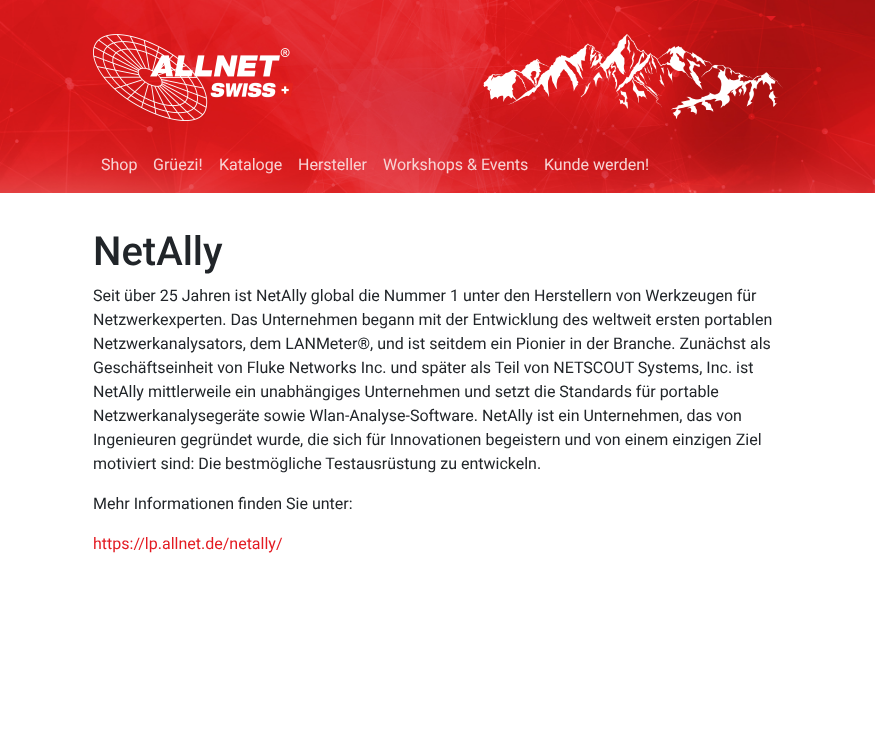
<!DOCTYPE html>
<meta charset="utf-8">
<style>body { margin: 0 } canvas { display: block }</style>
<canvas id="canvas" width="875" height="742"></canvas>
<script type="module">
  const canvas = document.getElementById("canvas");
  const ctx = canvas.getContext("2d");
  ctx.miterLimit = 4;
  ctx.fontKerning = "normal";
  async function loadImage(src) {
    const img = new Image();
    img.src = src;
    await img.decode();
    return img;
  }

  ctx.fillStyle = "#ffffff";
  ctx.fillRect(0, 0, 875, 742);
  ctx.drawImage(await loadImage("img1.png"), 0, 0, 875, 193);
  ctx.fillStyle = "#e31b22";
  ctx.beginPath();
  ctx.moveTo(766, 16);
  ctx.lineTo(776, 16);
  ctx.lineTo(771, 21);
  ctx.closePath();
  ctx.fill();
  ctx.drawImage(await loadImage("img2.png"), 93, 34, 200, 87);
  ctx.drawImage(await loadImage("img3.png"), 483, 34, 300, 85);
  ctx.font = "16px Roboto";
  ctx.fillStyle = "#f8d3d4";
  ctx.fillText("Shop", 101, 170);
  ctx.fillText("Grüezi!", 153, 170);
  ctx.fillText("Kataloge", 219, 170);
  ctx.fillText("Hersteller", 298, 170);
  ctx.fillText("Workshops & Events", 383, 170);
  ctx.fillText("Kunde werden!", 544, 170);
  ctx.font = "500 40px Roboto";
  ctx.fillStyle = "#212529";
  ctx.fillText("NetAlly", 93, 265);
  ctx.font = "16px Roboto";
  ctx.fillText("Seit über 25 Jahren ist NetAlly global die Nummer 1 unter den Herstellern von Werkzeugen für", 93, 301);
  ctx.fillText("Netzwerkexperten. Das Unternehmen begann mit der Entwicklung des weltweit ersten portablen", 93, 325);
  ctx.fillText("Netzwerkanalysators, dem LANMeter®, und ist seitdem ein Pionier in der Branche. Zunächst als", 93, 349);
  ctx.fillText("Geschäftseinheit von Fluke Networks Inc. und später als Teil von NETSCOUT Systems, Inc. ist", 93, 373);
  ctx.fillText("NetAlly mittlerweile ein unabhängiges Unternehmen und setzt die Standards für portable", 93, 397);
  ctx.fillText("Netzwerkanalysegeräte sowie Wlan-Analyse-Software. NetAlly ist ein Unternehmen, das von", 93, 421);
  ctx.fillText("Ingenieuren gegründet wurde, die sich für Innovationen begeistern und von einem einzigen Ziel", 93, 445);
  ctx.fillText("motiviert sind: Die bestmögliche Testausrüstung zu entwickeln.", 93, 469);
  ctx.fillText("Mehr Informationen finden Sie unter:", 93, 509);
  ctx.fillStyle = "#e31b22";
  ctx.fillText("https://lp.allnet.de/netally/", 93, 549);
</script>
